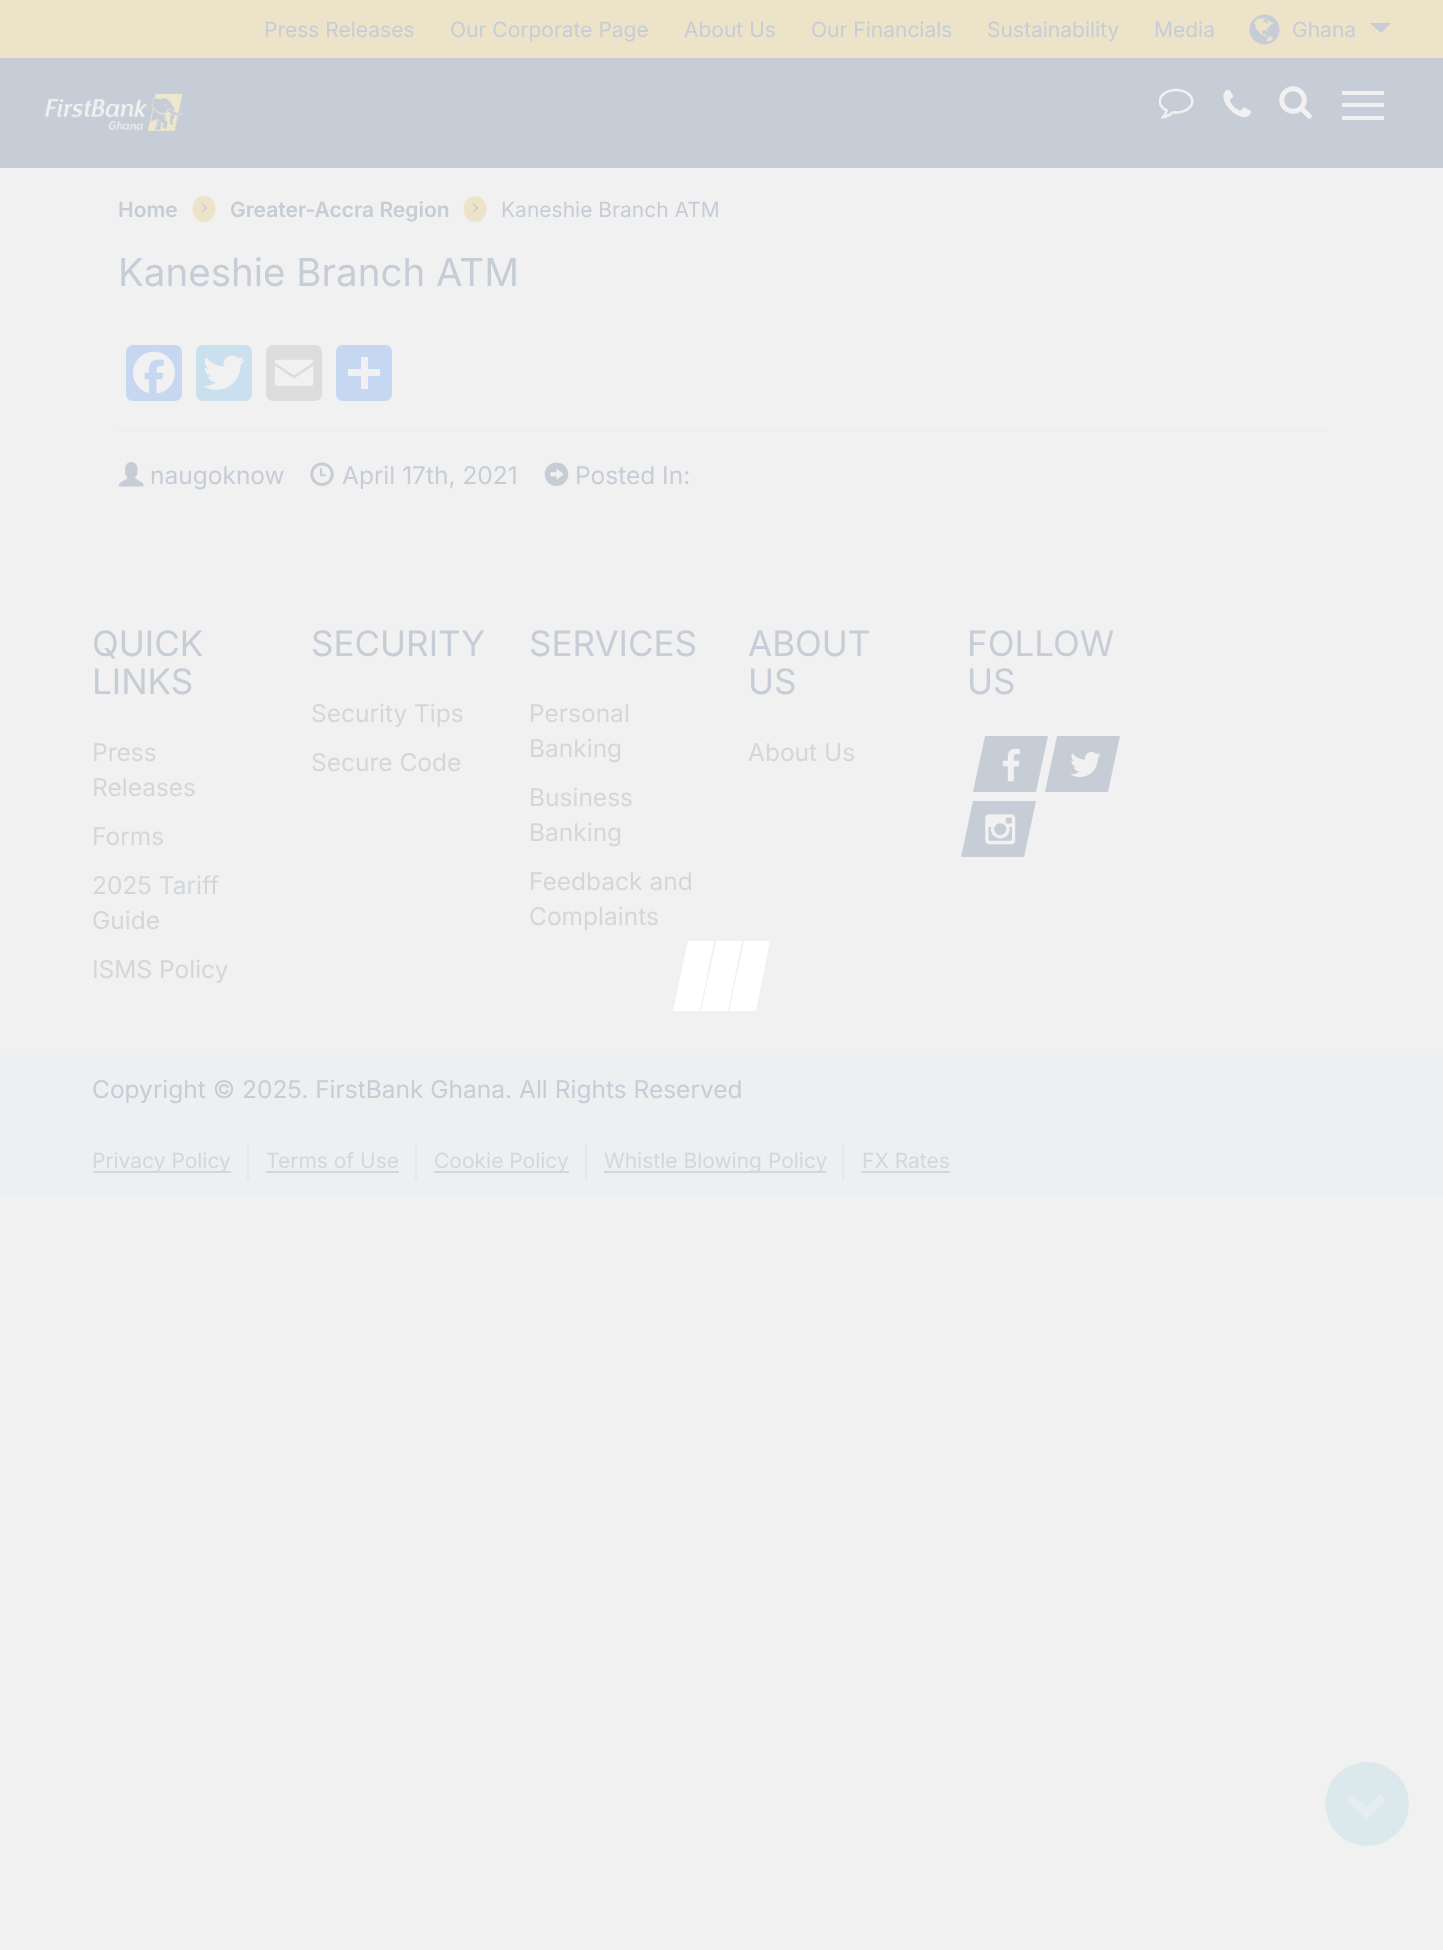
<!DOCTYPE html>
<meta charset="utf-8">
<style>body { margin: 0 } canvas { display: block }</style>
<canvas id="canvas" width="1443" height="1950"></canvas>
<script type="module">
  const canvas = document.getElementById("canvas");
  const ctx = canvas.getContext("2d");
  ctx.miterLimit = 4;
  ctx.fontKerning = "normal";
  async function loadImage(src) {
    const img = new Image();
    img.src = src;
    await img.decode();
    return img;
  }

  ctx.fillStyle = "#f1f1f1";
  ctx.fillRect(0, 0, 1443, 1950);
  ctx.fillStyle = "#ece3c8";
  ctx.fillRect(0, 0, 1443, 58);
  ctx.font = "21px Inter";
  ctx.fillStyle = "#c6cdd7";
  ctx.fillText("Press Releases", 264, 37);
  ctx.fillText("Our Corporate Page", 450, 37);
  ctx.fillText("About Us", 684, 37);
  ctx.fillText("Our Financials", 811, 37);
  ctx.fillText("Sustainability", 987, 37);
  ctx.fillText("Media", 1154, 37);
  ctx.drawImage(await loadImage("img1.png"), 1249, 14, 31, 31);
  ctx.fillText("Ghana", 1292, 37);
  ctx.beginPath();
  ctx.moveTo(1370, 23);
  ctx.lineTo(1391, 23);
  ctx.lineTo(1381, 33);
  ctx.closePath();
  ctx.fill();
  ctx.fillRect(0, 58, 1443, 110);
  ctx.drawImage(await loadImage("img2.png"), 44, 93, 139, 38);
  ctx.drawImage(await loadImage("img3.png"), 1159, 88, 35, 31);
  ctx.drawImage(await loadImage("img4.png"), 1223, 89, 28, 29);
  ctx.drawImage(await loadImage("img5.png"), 1279, 86, 33, 33);
  ctx.fillStyle = "#f1f1f1";
  ctx.fillRect(1342, 91, 42, 4);
  ctx.fillRect(1342, 103, 42, 4);
  ctx.fillRect(1342, 116, 42, 4);
  ctx.font = "600 21px Inter";
  ctx.fillStyle = "#c6cdd7";
  ctx.fillText("Home", 118, 217);
  ctx.fillStyle = "#ece3c8";
  ctx.beginPath();
  ctx.ellipse(204, 209, 11.5, 13, 0, 0, Math.PI * 2);
  ctx.fill();
  ctx.drawImage(await loadImage("img6.png"), 201, 203, 6, 10);
  ctx.fillStyle = "#c6cdd7";
  ctx.fillText("Greater-Accra Region", 230, 217);
  ctx.fillStyle = "#ece3c8";
  ctx.beginPath();
  ctx.ellipse(475, 209, 11.5, 13, 0, 0, Math.PI * 2);
  ctx.fill();
  ctx.drawImage(await loadImage("img7.png"), 472, 203, 7, 10);
  ctx.font = "21px Inter";
  ctx.fillStyle = "#c6cdd7";
  ctx.fillText("Kaneshie Branch ATM", 501, 217);
  ctx.font = "38.5px Inter";
  ctx.fillText("Kaneshie Branch ATM", 118, 286);
  ctx.fillStyle = "#c7d7f1";
  ctx.beginPath();
  ctx.roundRect(126, 345, 56, 56, 7);
  ctx.fill();
  ctx.drawImage(await loadImage("img8.png"), 133, 351, 42, 43);
  ctx.fillStyle = "#cae0ee";
  ctx.beginPath();
  ctx.roundRect(196, 345, 56, 56, 7);
  ctx.fill();
  ctx.drawImage(await loadImage("img9.png"), 203, 355, 42, 35);
  ctx.fillStyle = "#ddddde";
  ctx.beginPath();
  ctx.roundRect(266, 345, 56, 56, 7);
  ctx.fill();
  ctx.drawImage(await loadImage("img10.png"), 274, 359, 40, 27);
  ctx.fillStyle = "#c6d7f1";
  ctx.beginPath();
  ctx.roundRect(336, 345, 56, 56, 7);
  ctx.fill();
  ctx.fillStyle = "#f1f1f1";
  ctx.fillRect(361, 357, 7, 32);
  ctx.fillRect(348, 369, 32, 7);
  ctx.fillStyle = "#eeeeee";
  ctx.fillRect(119, 429, 1208, 2);
  ctx.drawImage(await loadImage("img11.png"), 119, 462, 25, 25);
  ctx.font = "24.5px Inter";
  ctx.fillStyle = "#c6cdd7";
  ctx.fillText("naugoknow", 150, 484);
  ctx.drawImage(await loadImage("img12.png"), 310, 462, 24, 24);
  ctx.fillText("April 17th, 2021", 342, 484);
  ctx.drawImage(await loadImage("img13.png"), 544, 462, 25, 25);
  ctx.fillText("Posted In:", 575, 484);
  ctx.font = "35px Inter";
  ctx.fillText("QUICK", 92, 656);
  ctx.fillText("LINKS", 92, 694);
  ctx.font = "24.5px Inter";
  ctx.fillStyle = "#d3d7da";
  ctx.fillText("Press", 92, 761);
  ctx.fillText("Releases", 92, 796);
  ctx.fillText("Forms", 92, 845);
  ctx.fillText("2025 Tariff", 92, 894);
  ctx.fillText("Guide", 92, 929);
  ctx.fillText("ISMS Policy", 92, 978);
  ctx.font = "35px Inter";
  ctx.fillStyle = "#c6cdd7";
  ctx.fillText("SECURITY", 311, 656);
  ctx.font = "24.5px Inter";
  ctx.fillStyle = "#d3d7da";
  ctx.fillText("Security Tips", 311, 722);
  ctx.fillText("Secure Code", 311, 771);
  ctx.font = "35px Inter";
  ctx.fillStyle = "#c6cdd7";
  ctx.fillText("SERVICES", 529, 656);
  ctx.font = "24.5px Inter";
  ctx.fillStyle = "#d3d7da";
  ctx.fillText("Personal", 529, 722);
  ctx.fillText("Banking", 529, 757);
  ctx.fillText("Business", 529, 806);
  ctx.fillText("Banking", 529, 841);
  ctx.fillText("Feedback and", 529, 890);
  ctx.fillText("Complaints", 529, 925);
  ctx.font = "35px Inter";
  ctx.fillStyle = "#c6cdd7";
  ctx.fillText("ABOUT", 748, 656);
  ctx.fillText("US", 748, 694);
  ctx.font = "24.5px Inter";
  ctx.fillStyle = "#d3d7da";
  ctx.fillText("About Us", 748, 761);
  ctx.font = "35px Inter";
  ctx.fillStyle = "#c6cdd7";
  ctx.fillText("FOLLOW", 967, 656);
  ctx.fillText("US", 967, 694);
  ctx.beginPath();
  ctx.moveTo(985, 736);
  ctx.lineTo(1048, 736);
  ctx.lineTo(1036, 792);
  ctx.lineTo(973, 792);
  ctx.closePath();
  ctx.fill();
  ctx.drawImage(await loadImage("img14.png"), 1002, 748, 18, 34);
  ctx.beginPath();
  ctx.moveTo(1057, 736);
  ctx.lineTo(1120, 736);
  ctx.lineTo(1108, 792);
  ctx.lineTo(1045, 792);
  ctx.closePath();
  ctx.fill();
  ctx.drawImage(await loadImage("img15.png"), 1070, 752, 31, 25);
  ctx.beginPath();
  ctx.moveTo(973, 801);
  ctx.lineTo(1036, 801);
  ctx.lineTo(1024, 857);
  ctx.lineTo(961, 857);
  ctx.closePath();
  ctx.fill();
  ctx.drawImage(await loadImage("img16.png"), 985, 814, 31, 31);
  ctx.fillStyle = "#eeeff1";
  ctx.fillRect(0, 1055, 1443, 142);
  ctx.font = "24.5px Inter";
  ctx.fillStyle = "#c6cdd7";
  ctx.fillText("Copyright © 2025. FirstBank Ghana. All Rights Reserved", 92, 1098);
  ctx.fillStyle = "#d3d7da";
  ctx.fillRect(93, 1171, 138, 2);
  ctx.font = "21px Inter";
  ctx.fillText("Privacy Policy", 92, 1168);
  ctx.fillStyle = "#e3e8ea";
  ctx.fillRect(247, 1143, 2, 37);
  ctx.fillStyle = "#d3d7da";
  ctx.fillText("Terms of Use", 266, 1168);
  ctx.fillRect(266, 1171, 133, 2);
  ctx.fillStyle = "#e3e8ea";
  ctx.fillRect(415, 1143, 2, 37);
  ctx.fillStyle = "#d3d7da";
  ctx.fillRect(434, 1171, 135, 2);
  ctx.fillText("Cookie Policy", 434, 1168);
  ctx.fillStyle = "#e3e8ea";
  ctx.fillRect(585, 1143, 2, 37);
  ctx.fillStyle = "#d3d7da";
  ctx.fillRect(604, 1171, 222, 2);
  ctx.fillText("Whistle Blowing Policy", 604, 1168);
  ctx.fillStyle = "#e3e8ea";
  ctx.fillRect(842, 1143, 2, 37);
  ctx.fillStyle = "#d3d7da";
  ctx.fillText("FX Rates", 862, 1168);
  ctx.fillRect(861, 1171, 89, 2);
  ctx.fillStyle = "#ffffff";
  ctx.beginPath();
  ctx.moveTo(688, 941);
  ctx.lineTo(714, 941);
  ctx.lineTo(700, 1011);
  ctx.lineTo(673, 1011);
  ctx.closePath();
  ctx.fill();
  ctx.beginPath();
  ctx.moveTo(716, 941);
  ctx.lineTo(742, 941);
  ctx.lineTo(728, 1011);
  ctx.lineTo(701, 1011);
  ctx.closePath();
  ctx.fill();
  ctx.beginPath();
  ctx.moveTo(744, 941);
  ctx.lineTo(770, 941);
  ctx.lineTo(756, 1011);
  ctx.lineTo(729, 1011);
  ctx.closePath();
  ctx.fill();
  ctx.fillStyle = "#dbe9ec";
  ctx.beginPath();
  ctx.arc(1367, 1804, 42, 0, Math.PI * 2);
  ctx.fill();
  ctx.drawImage(await loadImage("img17.png"), 1348, 1794, 38, 25);
</script>
